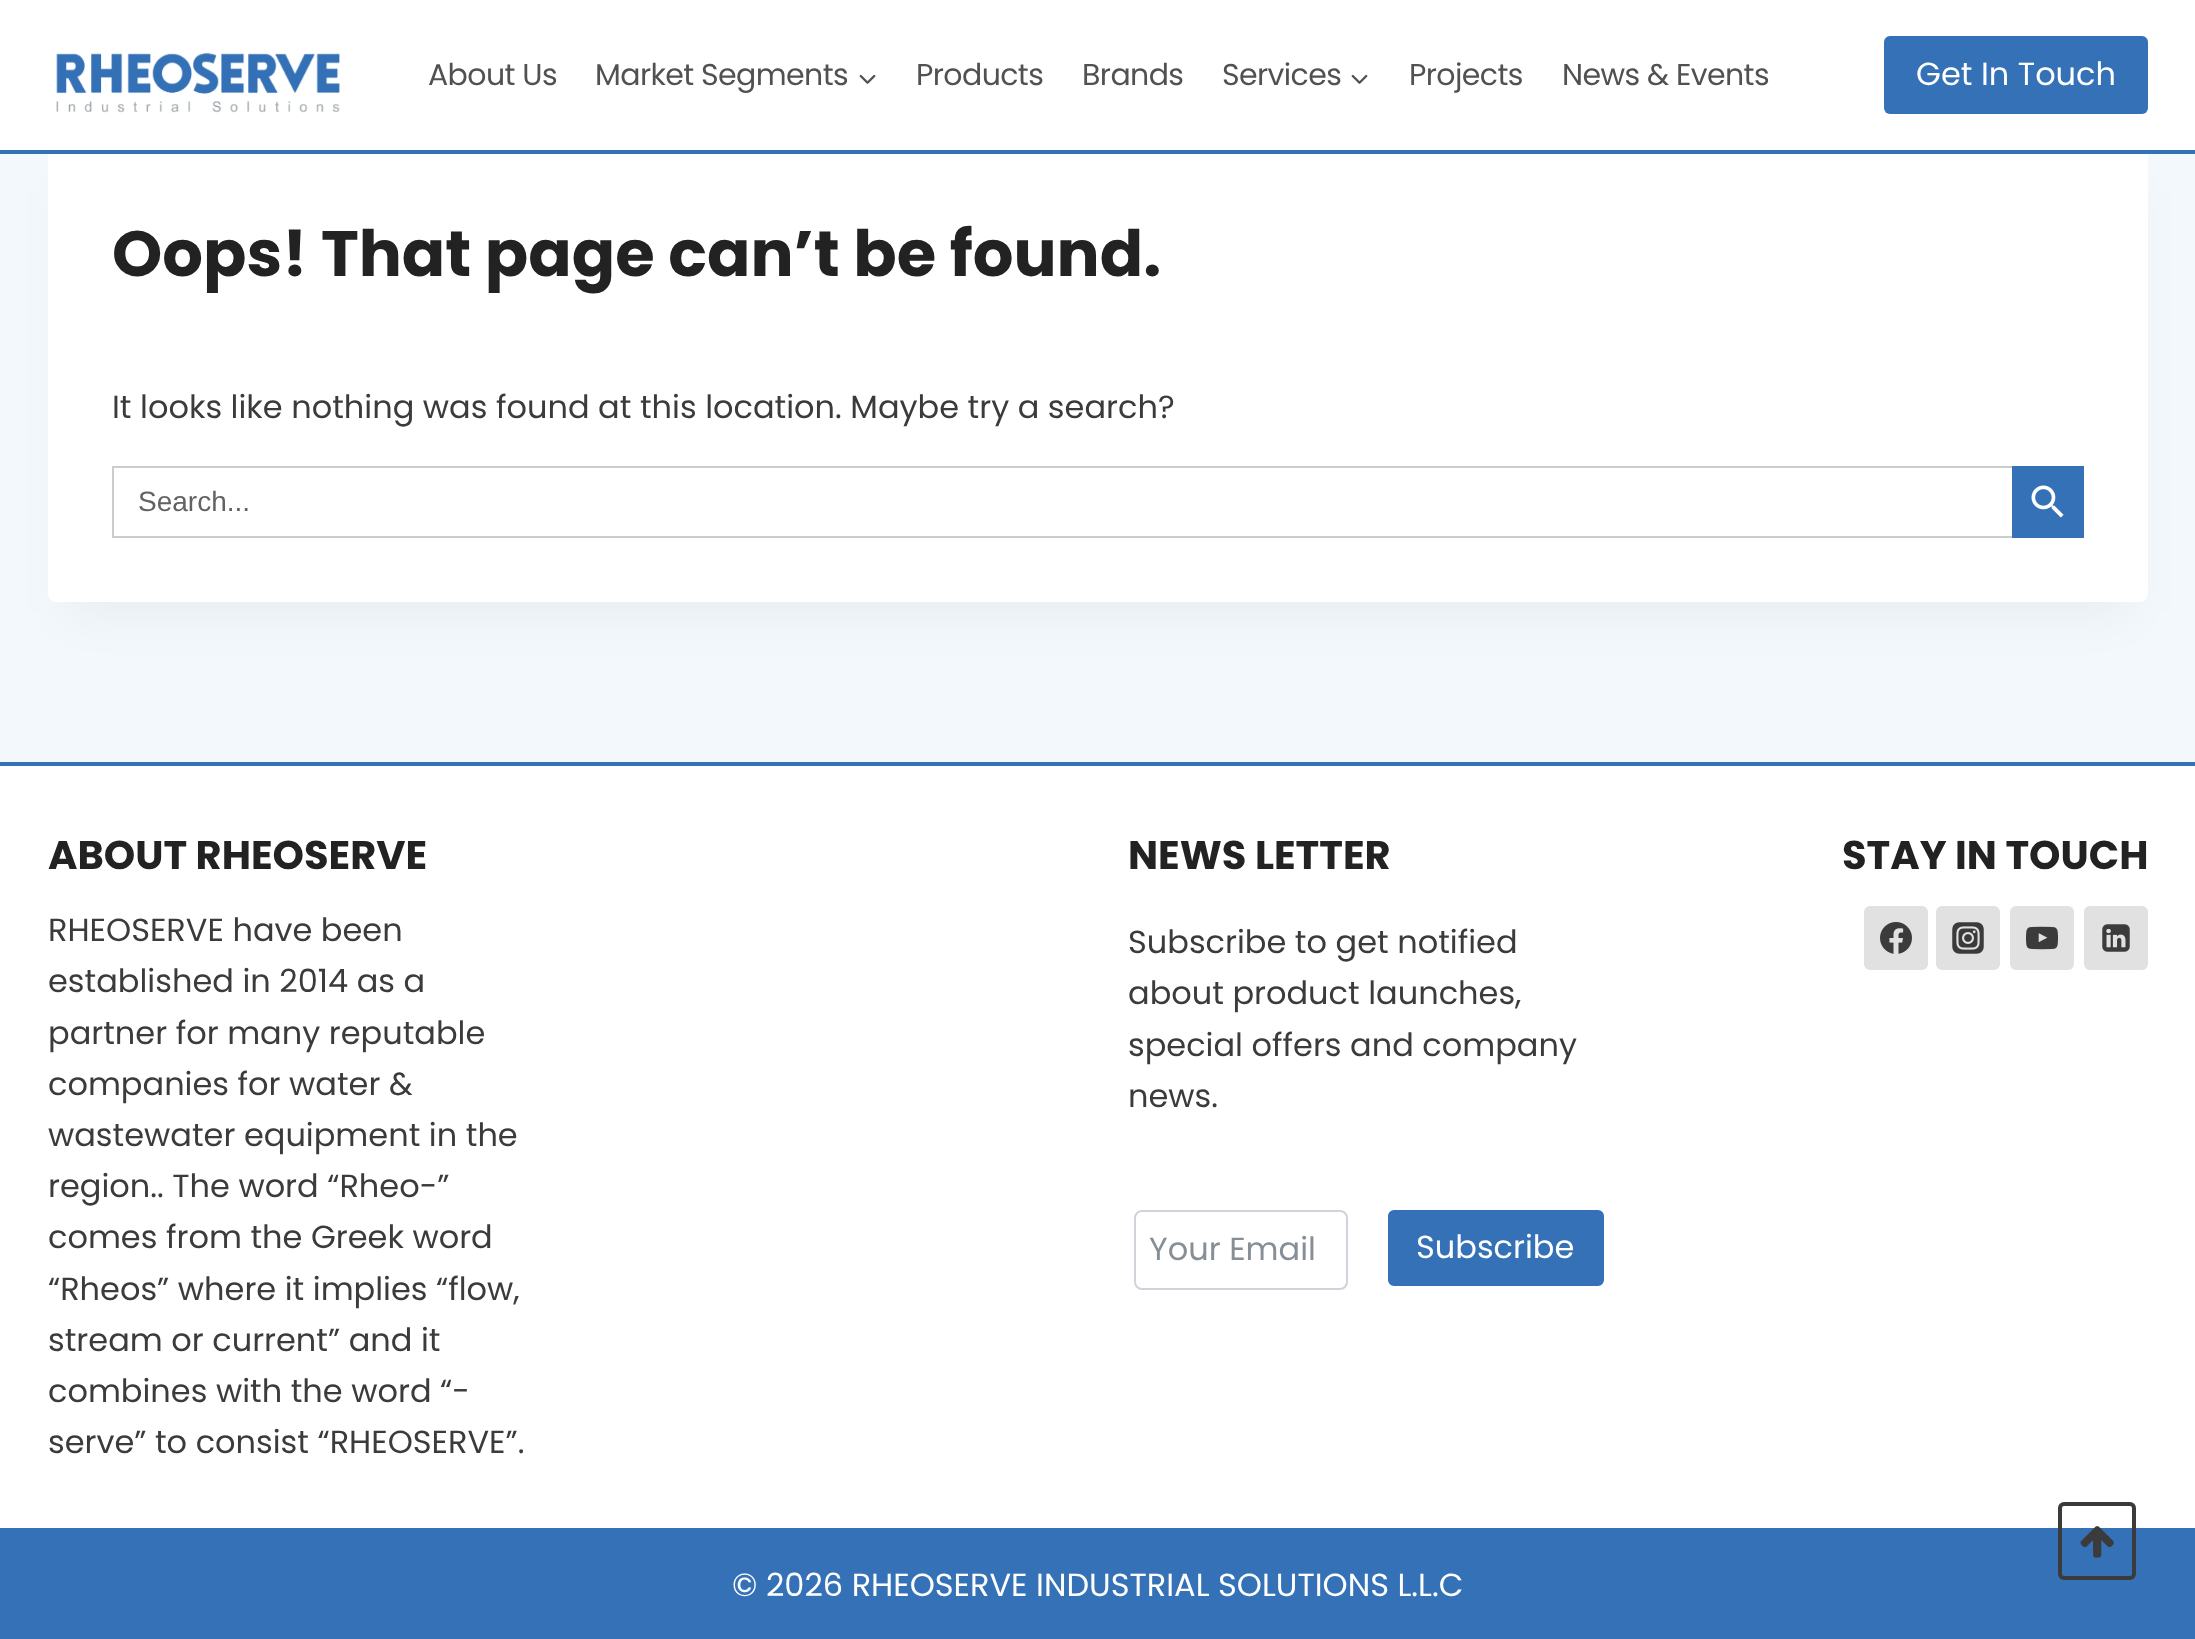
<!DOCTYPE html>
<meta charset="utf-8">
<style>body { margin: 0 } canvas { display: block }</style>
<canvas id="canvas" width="2195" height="1639"></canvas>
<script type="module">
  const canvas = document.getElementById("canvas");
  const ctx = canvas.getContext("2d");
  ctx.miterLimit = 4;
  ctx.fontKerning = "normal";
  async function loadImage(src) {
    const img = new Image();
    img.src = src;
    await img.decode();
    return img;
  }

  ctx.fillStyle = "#f2f8fc";
  ctx.fillRect(0, 0, 2195, 1639);
  ctx.fillStyle = "rgba(0, 0, 0, 0.05)";
  ctx.filter = "blur(25px)";
  ctx.beginPath();
  ctx.rect(68, 192, 2060, 420);
  ctx.fill();
  ctx.filter = "none";
  ctx.fillStyle = "#ffffff";
  ctx.beginPath();
  ctx.roundRect(48, 142, 2100, 460, 8);
  ctx.fill();
  ctx.fillRect(0, 0, 2195, 150);
  ctx.fillStyle = "#3471b7";
  ctx.fillRect(0, 150, 2195, 4);
  ctx.drawImage(await loadImage("img1.png"), 56, 53, 284, 60);
  ctx.letterSpacing = "-0.6px";
  ctx.font = "30px Poppins";
  ctx.fillStyle = "#515151";
  ctx.fillText("About Us", 428, 85);
  ctx.fillText("Market Segments", 595, 85);
  ctx.drawImage(await loadImage("img2.png"), 859, 74, 17, 10);
  ctx.fillText("Products", 916, 85);
  ctx.fillText("Brands", 1082, 85);
  ctx.fillText("Services", 1222, 85);
  ctx.drawImage(await loadImage("img2.png"), 1351, 74, 17, 10);
  ctx.fillText("Projects", 1409, 85);
  ctx.fillText("News & Events", 1562, 85);
  ctx.fillStyle = "#3471b7";
  ctx.beginPath();
  ctx.roundRect(1884, 36, 264, 78, 6);
  ctx.fill();
  ctx.letterSpacing = "0px";
  ctx.font = "32px Poppins";
  ctx.fillStyle = "#ffffff";
  ctx.fillText("Get In Touch", 1916, 85);
  ctx.font = "bold 64px Poppins";
  ctx.fillStyle = "#222222";
  ctx.fillText("Oops! That page can’t be found.", 112, 276);
  ctx.font = "32px Poppins";
  ctx.fillStyle = "#3b3b3b";
  ctx.fillText("It looks like nothing was found at this location. Maybe try a search?", 112, 418);
  ctx.fillStyle = "#cccccc";
  ctx.fillRect(112, 466, 1900, 2);
  ctx.fillRect(112, 536, 1900, 2);
  ctx.fillRect(112, 466, 2, 72);
  ctx.font = "28px Liberation Sans";
  ctx.fillStyle = "#626262";
  ctx.fillText("Search...", 138, 511);
  ctx.fillStyle = "#3471b7";
  ctx.fillRect(2012, 466, 72, 72);
  ctx.drawImage(await loadImage("img3.png"), 2031, 485, 33, 33);
  ctx.fillStyle = "#ffffff";
  ctx.fillRect(0, 766, 2195, 762);
  ctx.fillStyle = "#3471b7";
  ctx.fillRect(0, 762, 2195, 4);
  ctx.font = "bold 40px Poppins";
  ctx.fillStyle = "#222222";
  ctx.fillText("ABOUT RHEOSERVE", 48, 869);
  ctx.font = "32px Poppins";
  ctx.fillStyle = "#3b3b3b";
  ctx.fillText("RHEOSERVE have been", 48, 941);
  ctx.fillText("established in 2014 as a", 48, 992);
  ctx.fillText("partner for many reputable", 48, 1044);
  ctx.fillText("companies for water &", 48, 1095);
  ctx.fillText("wastewater equipment in the", 48, 1146);
  ctx.fillText("region.. The word “Rheo-”", 48, 1197);
  ctx.fillText("comes from the Greek word", 48, 1248);
  ctx.fillText("“Rheos” where it implies “flow,", 48, 1300);
  ctx.fillText("stream or current” and it", 48, 1351);
  ctx.fillText("combines with the word “-", 48, 1402);
  ctx.fillText("serve” to consist “RHEOSERVE”.", 48, 1453);
  ctx.font = "bold 40px Poppins";
  ctx.fillStyle = "#222222";
  ctx.fillText("NEWS LETTER", 1128, 869);
  ctx.font = "32px Poppins";
  ctx.fillStyle = "#3b3b3b";
  ctx.fillText("Subscribe to get notified", 1128, 953);
  ctx.fillText("about product launches,", 1128, 1004);
  ctx.fillText("special offers and company", 1128, 1056);
  ctx.fillText("news.", 1128, 1107);
  ctx.beginPath();
  ctx.roundRect(1135, 1211, 212, 78, 7);
  ctx.strokeStyle = "#ced4da";
  ctx.lineWidth = 2;
  ctx.stroke();
  ctx.fillStyle = "#868e96";
  ctx.fillText("Your Email", 1149, 1260);
  ctx.fillStyle = "#3471b7";
  ctx.beginPath();
  ctx.roundRect(1389, 1211, 214, 74, 5);
  ctx.fill();
  ctx.strokeStyle = "#3471b7";
  ctx.stroke();
  ctx.fillStyle = "#ffffff";
  ctx.fillText("Subscribe", 1416, 1258);
  ctx.font = "bold 40px Poppins";
  ctx.fillStyle = "#222222";
  ctx.fillText("STAY IN TOUCH", 1842, 869);
  ctx.fillStyle = "#e1e1e1";
  ctx.beginPath();
  ctx.roundRect(1864, 906, 64, 64, 6);
  ctx.fill();
  ctx.drawImage(await loadImage("img4.png"), 1880, 922, 32, 32);
  ctx.beginPath();
  ctx.roundRect(1936, 906, 64, 64, 6);
  ctx.fill();
  ctx.drawImage(await loadImage("img5.png"), 1952, 922, 32, 32);
  ctx.beginPath();
  ctx.roundRect(2010, 906, 64, 64, 6);
  ctx.fill();
  ctx.drawImage(await loadImage("img6.png"), 2026, 926, 32, 24);
  ctx.beginPath();
  ctx.roundRect(2084, 906, 64, 64, 6);
  ctx.fill();
  ctx.drawImage(await loadImage("img7.png"), 2102, 924, 28, 28);
  ctx.fillStyle = "#3471b7";
  ctx.fillRect(0, 1528, 2195, 111);
  ctx.font = "32px Poppins";
  ctx.fillStyle = "#ffffff";
  ctx.fillText("© 2026 RHEOSERVE INDUSTRIAL SOLUTIONS L.L.C", 732, 1596);
  ctx.beginPath();
  ctx.roundRect(2060, 1504, 74, 74, 4);
  ctx.strokeStyle = "#3b3b3b";
  ctx.lineWidth = 4;
  ctx.stroke();
  ctx.drawImage(await loadImage("img8.png"), 2080, 1526, 34, 32);
</script>
